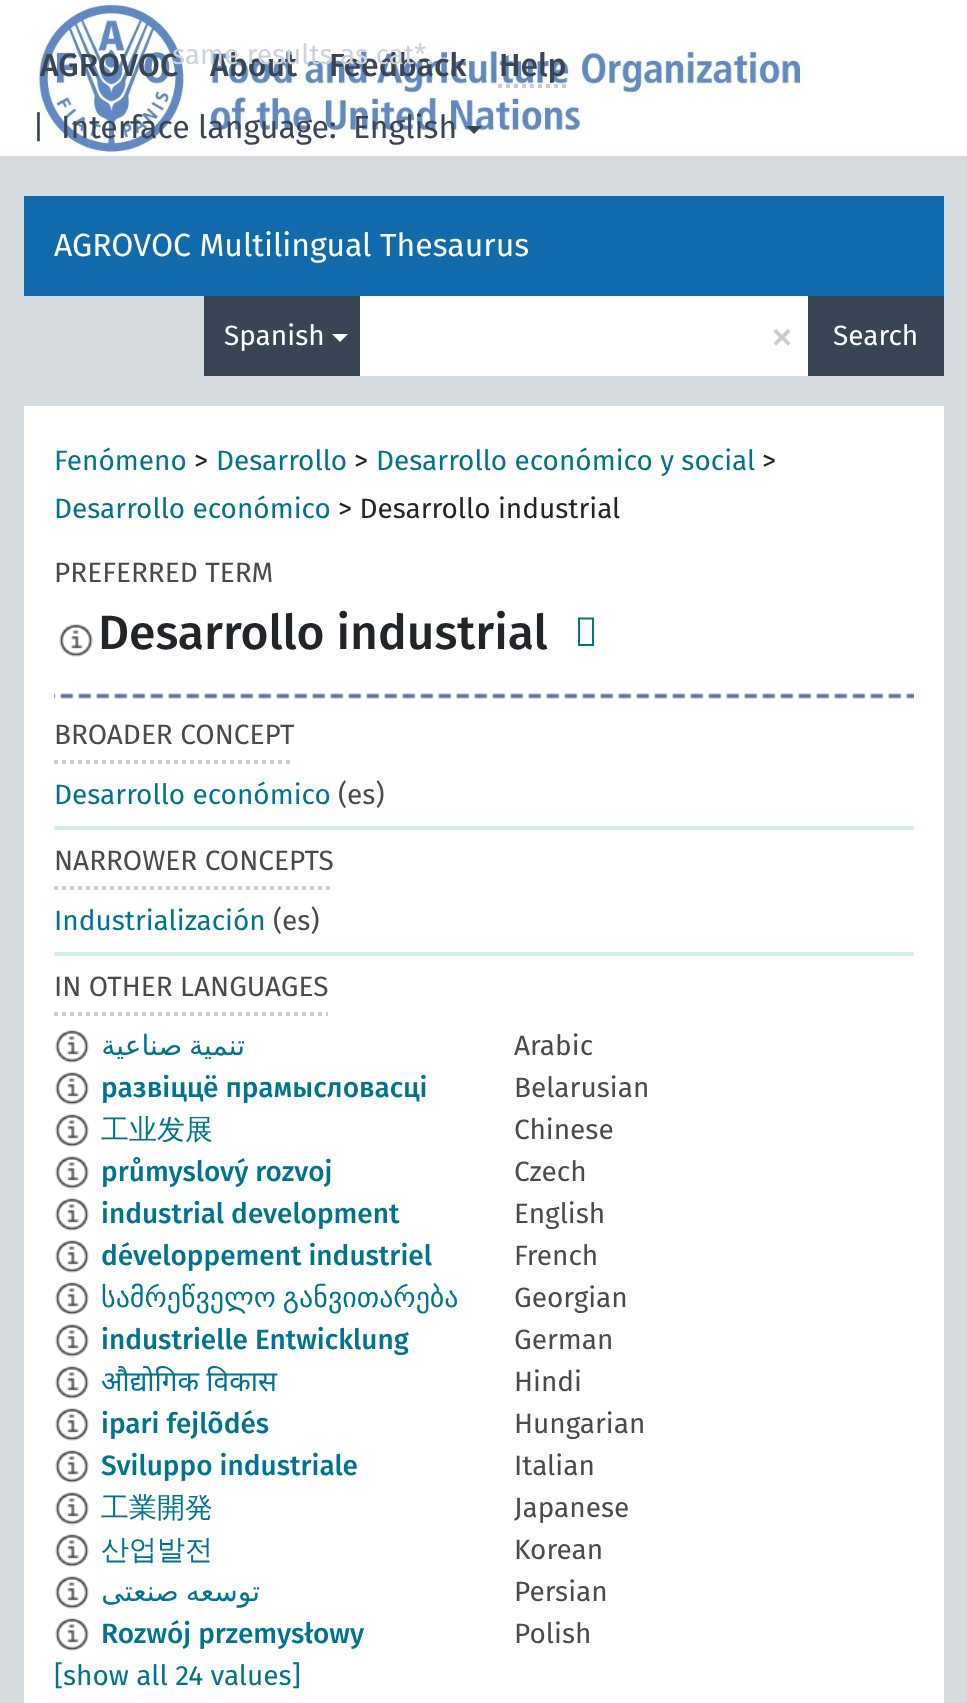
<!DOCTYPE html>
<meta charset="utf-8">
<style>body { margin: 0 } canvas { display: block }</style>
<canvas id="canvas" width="967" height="1703"></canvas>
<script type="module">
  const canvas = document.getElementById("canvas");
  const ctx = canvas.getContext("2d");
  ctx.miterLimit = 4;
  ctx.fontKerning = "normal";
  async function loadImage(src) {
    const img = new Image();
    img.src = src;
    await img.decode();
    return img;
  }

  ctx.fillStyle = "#d5dbde";
  ctx.fillRect(0, 0, 967, 1703);
  ctx.fillStyle = "#ffffff";
  ctx.fillRect(0, 0, 967, 156);
  ctx.drawImage(await loadImage("img1.png"), 37, 0, 766, 156);
  ctx.font = "500 32px Fira Sans";
  ctx.fillStyle = "#394554";
  ctx.fillText("AGROVOC", 40, 76);
  ctx.fillText("About", 210, 76);
  ctx.fillText("Feedback", 329, 76);
  ctx.font = "28px Fira Sans";
  ctx.fillStyle = "#ccd3db";
  ctx.fillText("same results as cat*.", 172, 64);
  ctx.font = "500 32px Fira Sans";
  ctx.fillStyle = "#394554";
  ctx.fillText("Help", 499, 76);
  ctx.beginPath();
  ctx.moveTo(498, 86);
  ctx.lineTo(566, 86);
  ctx.strokeStyle = "#cccccc";
  ctx.lineWidth = 4;
  ctx.setLineDash([4, 4]);
  ctx.stroke();
  ctx.font = "32px Fira Sans";
  ctx.fillText("|", 32, 138);
  ctx.fillText("Interface language:", 61, 138);
  ctx.fillText("English", 353, 138);
  ctx.beginPath();
  ctx.moveTo(466, 126);
  ctx.lineTo(482, 126);
  ctx.lineTo(474, 134);
  ctx.closePath();
  ctx.fill();
  ctx.fillStyle = "#116aab";
  ctx.fillRect(24, 196, 920, 100);
  ctx.fillStyle = "#fdfefe";
  ctx.fillText("AGROVOC Multilingual Thesaurus", 54, 256);
  ctx.fillStyle = "#394554";
  ctx.fillRect(204, 296, 156, 80);
  ctx.font = "28px Fira Sans";
  ctx.fillStyle = "#fdfefe";
  ctx.fillText("Spanish", 224, 345);
  ctx.fillStyle = "#ffffff";
  ctx.beginPath();
  ctx.moveTo(332, 334);
  ctx.lineTo(348, 334);
  ctx.lineTo(340, 342);
  ctx.closePath();
  ctx.fill();
  ctx.fillRect(360, 296, 448, 80);
  ctx.font = "48px Fira Sans";
  ctx.fillStyle = "#cccccc";
  ctx.fillText("×", 770, 352);
  ctx.fillStyle = "#394554";
  ctx.fillRect(808, 296, 136, 80);
  ctx.font = "28px Fira Sans";
  ctx.fillStyle = "#fdfefe";
  ctx.fillText("Search", 833, 345);
  ctx.fillStyle = "#ffffff";
  ctx.fillRect(24, 406, 920, 1297);
  ctx.fillStyle = "#00748f";
  ctx.fillText("Fenómeno", 54, 470);
  ctx.fillStyle = "#212529";
  ctx.fillText(">", 194, 470);
  ctx.fillStyle = "#00748f";
  ctx.fillText("Desarrollo", 216, 470);
  ctx.fillStyle = "#212529";
  ctx.fillText(">", 354, 470);
  ctx.fillStyle = "#00748f";
  ctx.fillText("Desarrollo económico y social", 376, 470);
  ctx.fillStyle = "#212529";
  ctx.fillText(">", 762, 470);
  ctx.fillStyle = "#00748f";
  ctx.fillText("Desarrollo económico", 54, 518);
  ctx.fillStyle = "#212529";
  ctx.fillText("> Desarrollo industrial", 338, 518);
  ctx.fillStyle = "#474b4f";
  ctx.fillText("PREFERRED TERM", 54, 582);
  ctx.drawImage(await loadImage("img2.png"), 59, 624, 34, 33);
  ctx.font = "500 48px Fira Sans";
  ctx.fillStyle = "#212529";
  ctx.fillText("Desarrollo industrial", 98, 649);
  ctx.fillStyle = "#00748f";
  ctx.beginPath();
  ctx.moveTo(578, 646);
  ctx.lineTo(578, 617.5);
  ctx.lineTo(594, 617.5);
  ctx.lineTo(594, 646);
  ctx.closePath();
  ctx.moveTo(580, 644);
  ctx.lineTo(592, 644);
  ctx.lineTo(592, 619.5);
  ctx.lineTo(580, 619.5);
  ctx.closePath();
  ctx.fill();
  ctx.drawImage(await loadImage("img3.png"), 54, 693, 860, 6);
  ctx.beginPath();
  ctx.moveTo(54, 762);
  ctx.lineTo(294, 762);
  ctx.stroke();
  ctx.font = "28px Fira Sans";
  ctx.fillStyle = "#474b4f";
  ctx.fillText("BROADER CONCEPT", 54, 744);
  ctx.fillStyle = "#d4edeb";
  ctx.fillRect(54, 826, 860, 4);
  ctx.fillStyle = "#00748f";
  ctx.fillText("Desarrollo económico", 54, 804);
  ctx.fillStyle = "#474b4f";
  ctx.fillText("(es)", 338, 804);
  ctx.beginPath();
  ctx.moveTo(54, 888);
  ctx.lineTo(334, 888);
  ctx.stroke();
  ctx.fillText("NARROWER CONCEPTS", 54, 870);
  ctx.fillStyle = "#d4edeb";
  ctx.fillRect(54, 952, 860, 4);
  ctx.fillStyle = "#00748f";
  ctx.fillText("Industrialización", 54, 930);
  ctx.fillStyle = "#474b4f";
  ctx.fillText("(es)", 273, 930);
  ctx.beginPath();
  ctx.moveTo(54, 1014);
  ctx.lineTo(328, 1014);
  ctx.stroke();
  ctx.fillText("IN OTHER LANGUAGES", 54, 996);
  ctx.drawImage(await loadImage("img4.png"), 55, 1030, 34, 33);
  ctx.wordSpacing = "-2px";
  ctx.direction = "rtl";
  ctx.font = "28px DejaVu Sans";
  ctx.fillStyle = "#00748f";
  ctx.fillText("تنمية صناعية", 245, 1055);
  ctx.wordSpacing = "0px";
  ctx.direction = "ltr";
  ctx.font = "28px Fira Sans";
  ctx.fillStyle = "#474b4f";
  ctx.fillText("Arabic", 514, 1055);
  ctx.drawImage(await loadImage("img5.png"), 55, 1072, 34, 33);
  ctx.font = "500 28px Fira Sans";
  ctx.fillStyle = "#00748f";
  ctx.fillText("развіццё прамысловасці", 101, 1097);
  ctx.font = "28px Fira Sans";
  ctx.fillStyle = "#474b4f";
  ctx.fillText("Belarusian", 514, 1097);
  ctx.drawImage(await loadImage("img6.png"), 55, 1114, 34, 33);
  ctx.font = "500 28px WenQuanYi Zen Hei";
  ctx.fillStyle = "#00748f";
  ctx.fillText("工业发展", 101, 1139);
  ctx.font = "28px Fira Sans";
  ctx.fillStyle = "#474b4f";
  ctx.fillText("Chinese", 514, 1139);
  ctx.drawImage(await loadImage("img6.png"), 55, 1156, 34, 33);
  ctx.font = "500 28px Fira Sans";
  ctx.fillStyle = "#00748f";
  ctx.fillText("průmyslový rozvoj", 101, 1181);
  ctx.font = "28px Fira Sans";
  ctx.fillStyle = "#474b4f";
  ctx.fillText("Czech", 514, 1181);
  ctx.drawImage(await loadImage("img6.png"), 55, 1198, 34, 33);
  ctx.font = "500 28px Fira Sans";
  ctx.fillStyle = "#00748f";
  ctx.fillText("industrial development", 101, 1223);
  ctx.font = "28px Fira Sans";
  ctx.fillStyle = "#474b4f";
  ctx.fillText("English", 514, 1223);
  ctx.drawImage(await loadImage("img6.png"), 55, 1240, 34, 33);
  ctx.font = "500 28px Fira Sans";
  ctx.fillStyle = "#00748f";
  ctx.fillText("développement industriel", 101, 1265);
  ctx.font = "28px Fira Sans";
  ctx.fillStyle = "#474b4f";
  ctx.fillText("French", 514, 1265);
  ctx.drawImage(await loadImage("img7.png"), 55, 1282, 34, 33);
  ctx.wordSpacing = "-2px";
  ctx.font = "28px DejaVu Sans";
  ctx.fillStyle = "#00748f";
  ctx.fillText("სამრეწველო განვითარება", 101, 1307);
  ctx.wordSpacing = "0px";
  ctx.font = "28px Fira Sans";
  ctx.fillStyle = "#474b4f";
  ctx.fillText("Georgian", 514, 1307);
  ctx.drawImage(await loadImage("img6.png"), 55, 1324, 34, 33);
  ctx.font = "500 28px Fira Sans";
  ctx.fillStyle = "#00748f";
  ctx.fillText("industrielle Entwicklung", 101, 1349);
  ctx.font = "28px Fira Sans";
  ctx.fillStyle = "#474b4f";
  ctx.fillText("German", 514, 1349);
  ctx.drawImage(await loadImage("img5.png"), 55, 1366, 34, 33);
  ctx.font = "28px Noto Sans";
  ctx.fillStyle = "#00748f";
  ctx.fillText("औद्योगिक विकास", 101, 1391);
  ctx.font = "28px Fira Sans";
  ctx.fillStyle = "#474b4f";
  ctx.fillText("Hindi", 514, 1391);
  ctx.drawImage(await loadImage("img6.png"), 55, 1408, 34, 33);
  ctx.font = "500 28px Fira Sans";
  ctx.fillStyle = "#00748f";
  ctx.fillText("ipari fejlõdés", 101, 1433);
  ctx.font = "28px Fira Sans";
  ctx.fillStyle = "#474b4f";
  ctx.fillText("Hungarian", 514, 1433);
  ctx.drawImage(await loadImage("img8.png"), 55, 1450, 34, 33);
  ctx.font = "500 28px Fira Sans";
  ctx.fillStyle = "#00748f";
  ctx.fillText("Sviluppo industriale", 101, 1475);
  ctx.font = "28px Fira Sans";
  ctx.fillStyle = "#474b4f";
  ctx.fillText("Italian", 514, 1475);
  ctx.drawImage(await loadImage("img6.png"), 55, 1492, 34, 33);
  ctx.font = "500 28px WenQuanYi Zen Hei";
  ctx.fillStyle = "#00748f";
  ctx.fillText("工業開発", 101, 1517);
  ctx.font = "28px Fira Sans";
  ctx.fillStyle = "#474b4f";
  ctx.fillText("Japanese", 514, 1517);
  ctx.drawImage(await loadImage("img6.png"), 55, 1534, 34, 33);
  ctx.font = "500 28px WenQuanYi Zen Hei";
  ctx.fillStyle = "#00748f";
  ctx.fillText("산업발전", 101, 1559);
  ctx.font = "28px Fira Sans";
  ctx.fillStyle = "#474b4f";
  ctx.fillText("Korean", 514, 1559);
  ctx.drawImage(await loadImage("img6.png"), 55, 1576, 34, 33);
  ctx.wordSpacing = "-2px";
  ctx.direction = "rtl";
  ctx.font = "28px DejaVu Sans";
  ctx.fillStyle = "#00748f";
  ctx.fillText("توسعه صنعتی", 260, 1601);
  ctx.wordSpacing = "0px";
  ctx.direction = "ltr";
  ctx.font = "28px Fira Sans";
  ctx.fillStyle = "#474b4f";
  ctx.fillText("Persian", 514, 1601);
  ctx.drawImage(await loadImage("img6.png"), 55, 1618, 34, 33);
  ctx.font = "500 28px Fira Sans";
  ctx.fillStyle = "#00748f";
  ctx.fillText("Rozwój przemysłowy", 101, 1643);
  ctx.font = "28px Fira Sans";
  ctx.fillStyle = "#474b4f";
  ctx.fillText("Polish", 514, 1643);
  ctx.fillStyle = "#00748f";
  ctx.fillText("[show all 24 values]", 54, 1685);
</script>
